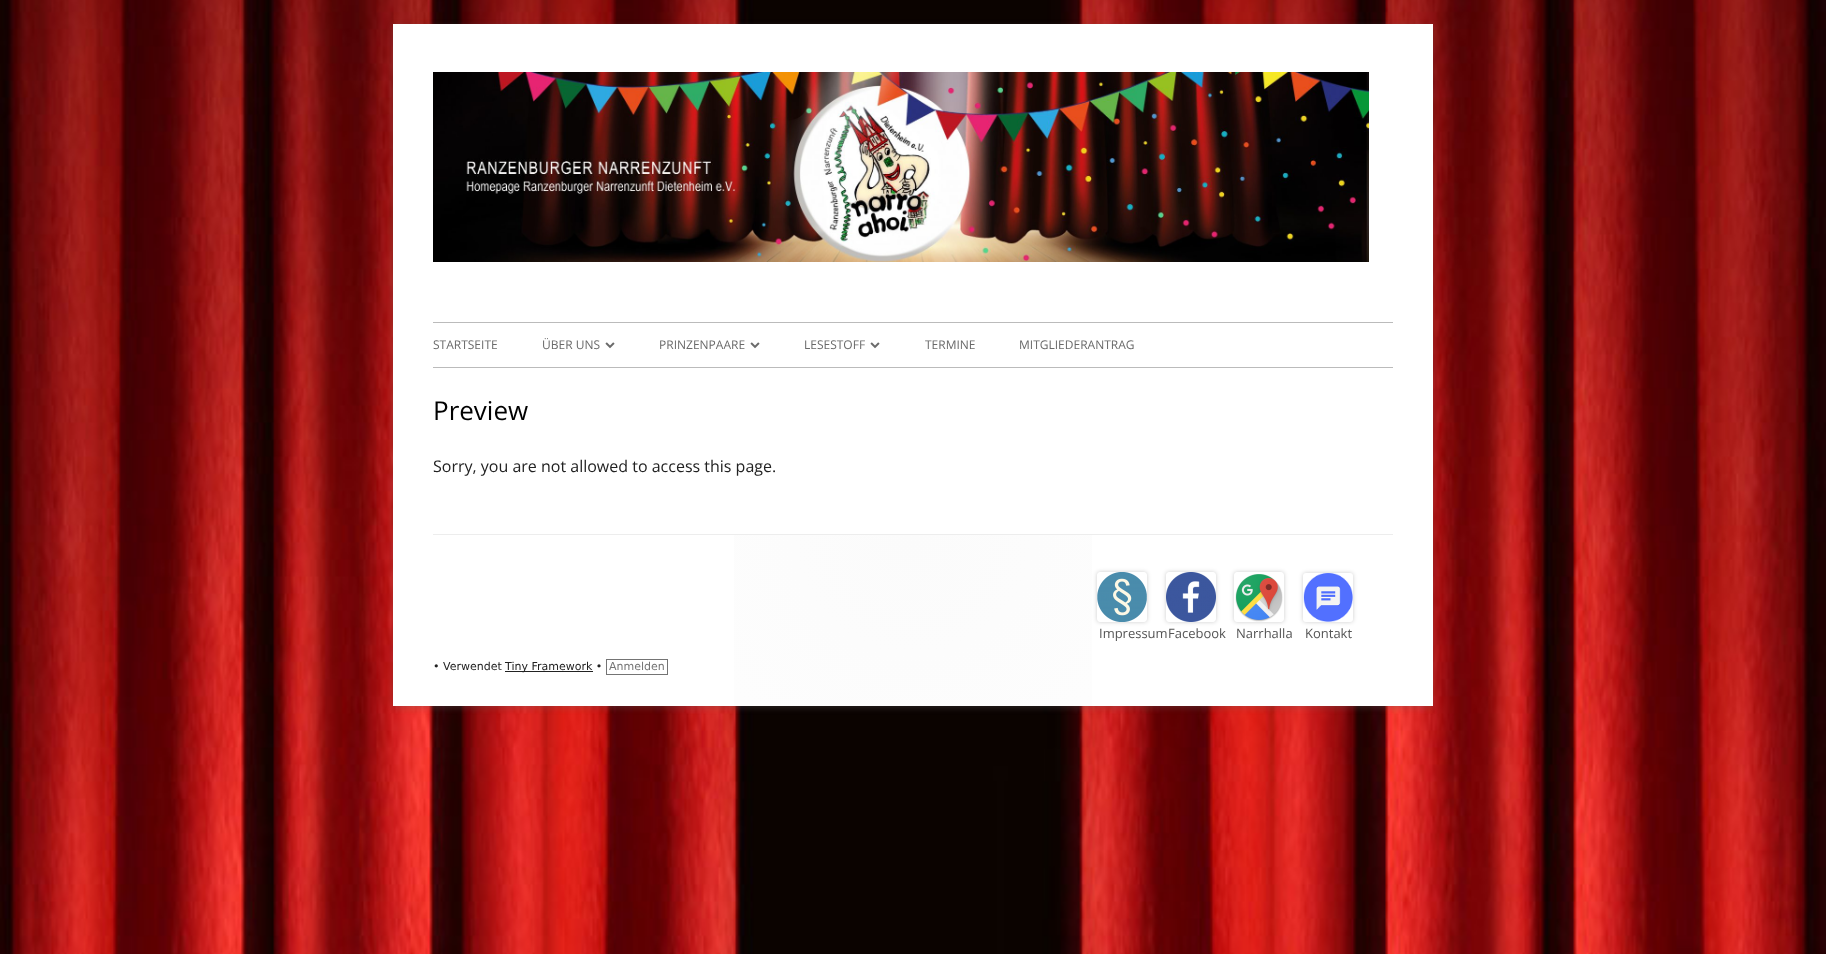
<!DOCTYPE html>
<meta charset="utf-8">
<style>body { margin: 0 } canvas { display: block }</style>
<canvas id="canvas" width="1826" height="954"></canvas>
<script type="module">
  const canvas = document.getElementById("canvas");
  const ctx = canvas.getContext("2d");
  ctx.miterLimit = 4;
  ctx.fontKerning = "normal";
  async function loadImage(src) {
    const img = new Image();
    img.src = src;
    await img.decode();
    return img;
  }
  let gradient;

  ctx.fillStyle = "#ffffff";
  ctx.fillRect(0, 0, 1826, 954);
  ctx.drawImage(await loadImage("img1.png"), 0, 0, 1826, 954);
  ctx.fillStyle = "rgba(100, 100, 100, 0.3)";
  ctx.filter = "blur(3px)";
  ctx.beginPath();
  ctx.rect(393, 26, 1040, 682);
  ctx.fill();
  ctx.filter = "none";
  ctx.fillStyle = "#ffffff";
  ctx.fillRect(393, 24, 1040, 682);
  ctx.drawImage(await loadImage("img2.png"), 433, 72, 936, 190);
  ctx.fillStyle = "#bbbbbb";
  ctx.fillRect(433, 322, 960, 1);
  ctx.fillRect(433, 367, 960, 1);
  ctx.font = "12px Open Sans";
  ctx.fillStyle = "#6a6a6a";
  ctx.fillText("STARTSEITE", 433, 349);
  ctx.fillText("ÜBER UNS", 542, 349);
  ctx.drawImage(await loadImage("img3.png"), 605, 342, 10, 7);
  ctx.fillText("PRINZENPAARE", 659, 349);
  ctx.drawImage(await loadImage("img3.png"), 750, 342, 10, 7);
  ctx.fillText("LESESTOFF", 804, 349);
  ctx.drawImage(await loadImage("img3.png"), 870, 342, 10, 7);
  ctx.fillText("TERMINE", 925, 349);
  ctx.fillText("MITGLIEDERANTRAG", 1019, 349);
  ctx.font = "26px Open Sans";
  ctx.fillStyle = "#000000";
  ctx.fillText("Preview", 433, 420);
  ctx.font = "16px Open Sans";
  ctx.fillStyle = "#222222";
  ctx.fillText("Sorry, you are not allowed to access this page.", 433, 472);
  gradient = ctx.createRadialGradient(913, 535, 0, 913, 535, 480);
  gradient.addColorStop(0, "#fbfbfb");
  gradient.addColorStop(1, "#ffffff");
  ctx.fillStyle = gradient;
  ctx.fillRect(734, 535, 358, 171);
  ctx.fillStyle = "#ededed";
  ctx.fillRect(433, 534, 960, 1);
  ctx.save();
  ctx.beginPath();
  ctx.moveTo(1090, 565);
  ctx.lineTo(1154, 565);
  ctx.lineTo(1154, 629);
  ctx.lineTo(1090, 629);
  ctx.closePath();
  ctx.moveTo(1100, 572);
  ctx.lineTo(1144, 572);
  ctx.bezierCurveTo(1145.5, 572, 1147, 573.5, 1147, 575);
  ctx.lineTo(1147, 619);
  ctx.bezierCurveTo(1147, 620.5, 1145.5, 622, 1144, 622);
  ctx.lineTo(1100, 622);
  ctx.bezierCurveTo(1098.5, 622, 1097, 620.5, 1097, 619);
  ctx.lineTo(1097, 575);
  ctx.bezierCurveTo(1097, 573.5, 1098.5, 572, 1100, 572);
  ctx.closePath();
  ctx.clip("evenodd");
  ctx.fillStyle = "rgba(0, 0, 0, 0.2)";
  ctx.filter = "blur(2px)";
  ctx.beginPath();
  ctx.roundRect(1097, 572, 50, 50, 3);
  ctx.fill();
  ctx.filter = "none";
  ctx.restore();
  ctx.drawImage(await loadImage("img4.png"), 1097, 572, 50, 50);
  ctx.font = "13px Open Sans";
  ctx.fillStyle = "#555555";
  ctx.fillText("Impressum", 1099, 638);
  ctx.save();
  ctx.beginPath();
  ctx.moveTo(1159, 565);
  ctx.lineTo(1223, 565);
  ctx.lineTo(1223, 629);
  ctx.lineTo(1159, 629);
  ctx.closePath();
  ctx.moveTo(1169, 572);
  ctx.lineTo(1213, 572);
  ctx.bezierCurveTo(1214.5, 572, 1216, 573.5, 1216, 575);
  ctx.lineTo(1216, 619);
  ctx.bezierCurveTo(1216, 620.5, 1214.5, 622, 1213, 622);
  ctx.lineTo(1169, 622);
  ctx.bezierCurveTo(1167.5, 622, 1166, 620.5, 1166, 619);
  ctx.lineTo(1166, 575);
  ctx.bezierCurveTo(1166, 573.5, 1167.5, 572, 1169, 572);
  ctx.closePath();
  ctx.clip("evenodd");
  ctx.fillStyle = "rgba(0, 0, 0, 0.2)";
  ctx.filter = "blur(2px)";
  ctx.beginPath();
  ctx.roundRect(1166, 572, 50, 50, 3);
  ctx.fill();
  ctx.filter = "none";
  ctx.restore();
  ctx.drawImage(await loadImage("img5.png"), 1166, 572, 50, 50);
  ctx.fillText("Facebook", 1168, 638);
  ctx.save();
  ctx.beginPath();
  ctx.moveTo(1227, 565);
  ctx.lineTo(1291, 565);
  ctx.lineTo(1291, 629);
  ctx.lineTo(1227, 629);
  ctx.closePath();
  ctx.moveTo(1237, 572);
  ctx.lineTo(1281, 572);
  ctx.bezierCurveTo(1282.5, 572, 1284, 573.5, 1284, 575);
  ctx.lineTo(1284, 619);
  ctx.bezierCurveTo(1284, 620.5, 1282.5, 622, 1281, 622);
  ctx.lineTo(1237, 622);
  ctx.bezierCurveTo(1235.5, 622, 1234, 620.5, 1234, 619);
  ctx.lineTo(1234, 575);
  ctx.bezierCurveTo(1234, 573.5, 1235.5, 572, 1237, 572);
  ctx.closePath();
  ctx.clip("evenodd");
  ctx.fillStyle = "rgba(0, 0, 0, 0.2)";
  ctx.filter = "blur(2px)";
  ctx.beginPath();
  ctx.roundRect(1234, 572, 50, 50, 3);
  ctx.fill();
  ctx.filter = "none";
  ctx.restore();
  ctx.drawImage(await loadImage("img6.png"), 1235, 574, 48, 48);
  ctx.fillText("Narrhalla", 1236, 638);
  ctx.fillStyle = "rgba(0, 0, 0, 0.2)";
  ctx.filter = "blur(2px)";
  ctx.beginPath();
  ctx.roundRect(1303, 573, 50, 49, 3);
  ctx.fill();
  ctx.filter = "none";
  ctx.drawImage(await loadImage("img7.png"), 1303, 573, 50, 49);
  ctx.fillStyle = "#555555";
  ctx.fillText("Kontakt", 1305, 638);
  ctx.font = "11px DejaVu Sans";
  ctx.fillStyle = "#222222";
  ctx.fillText("• Verwendet", 433, 670);
  ctx.fillRect(505, 671, 88, 1);
  ctx.fillText("Tiny Framework •", 505, 670);
  ctx.strokeStyle = "#747474";
  ctx.strokeRect(606.5, 659.5, 61, 15);
  ctx.fillStyle = "#747474";
  ctx.fillText("Anmelden", 609, 670);
</script>
